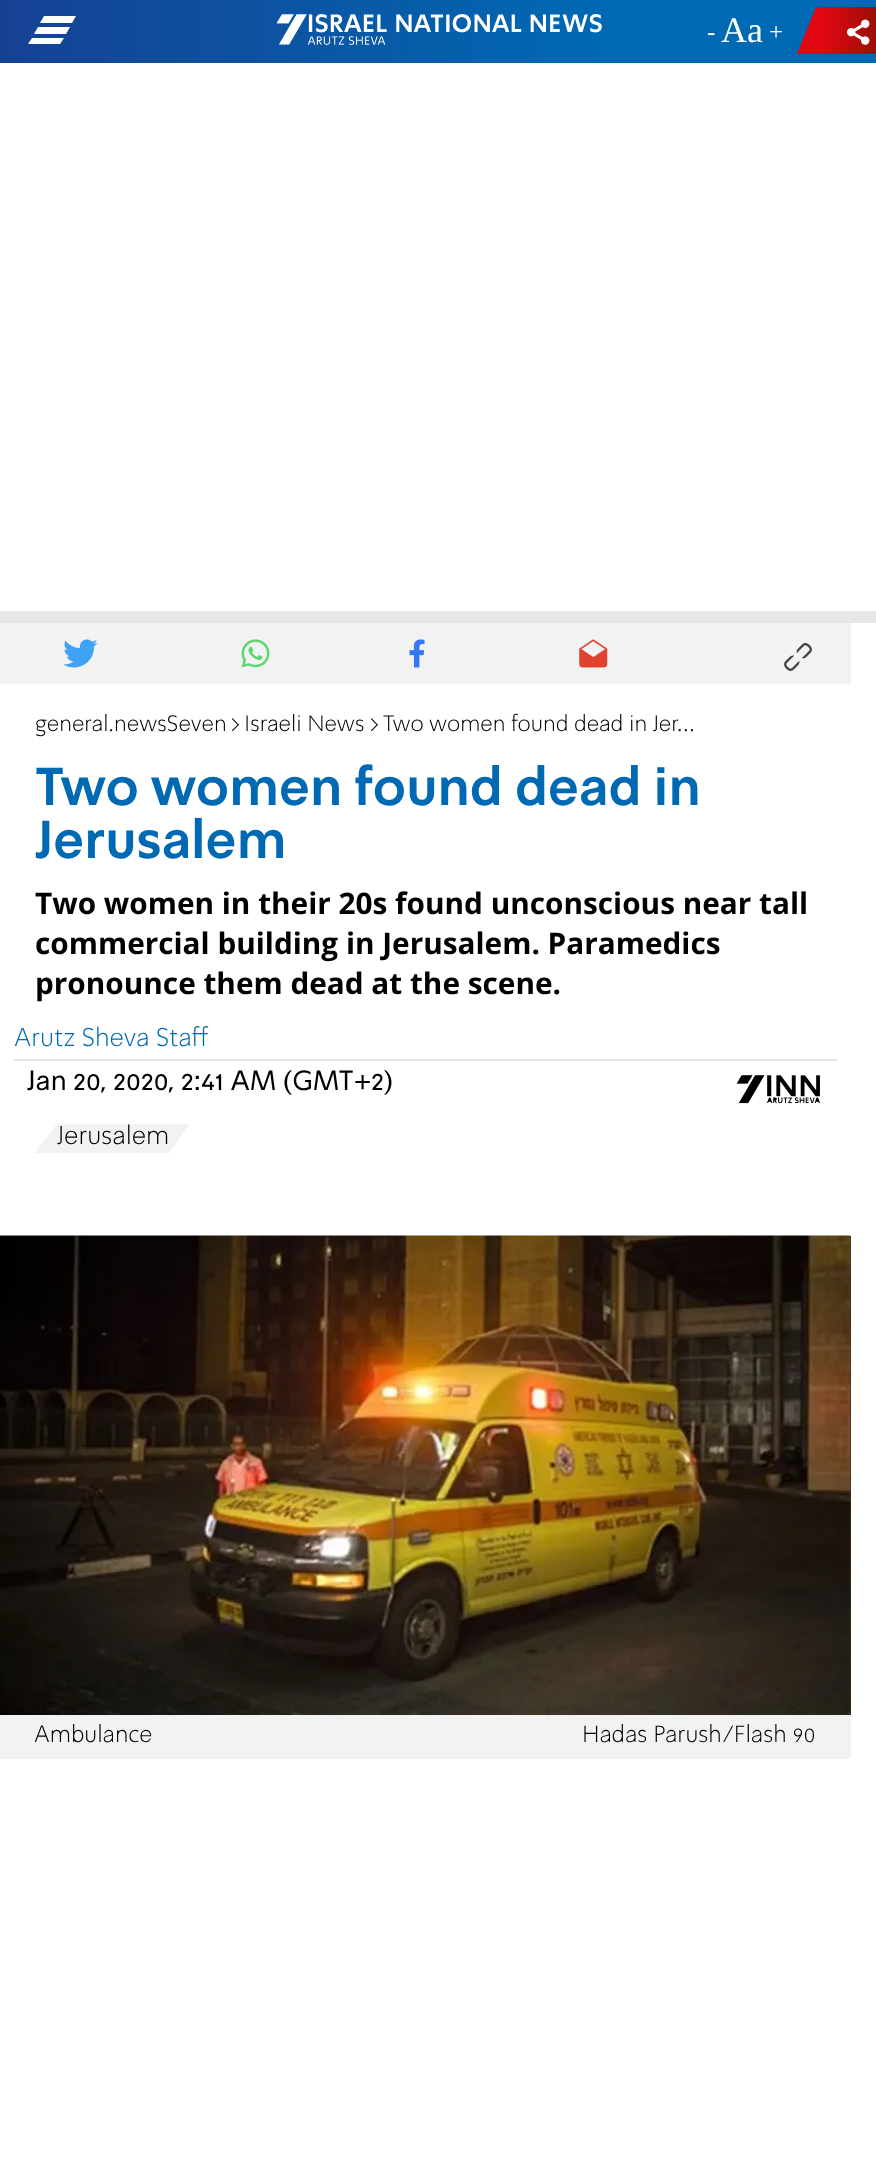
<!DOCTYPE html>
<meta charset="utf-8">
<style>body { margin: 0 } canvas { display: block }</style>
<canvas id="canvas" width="876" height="2164"></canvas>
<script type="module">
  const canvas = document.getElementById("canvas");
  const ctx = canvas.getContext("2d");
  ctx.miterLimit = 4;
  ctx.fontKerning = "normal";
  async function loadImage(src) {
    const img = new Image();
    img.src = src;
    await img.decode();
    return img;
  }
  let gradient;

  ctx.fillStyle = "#ffffff";
  ctx.fillRect(0, 0, 876, 2164);
  gradient = ctx.createLinearGradient(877, 31, 0, 32);
  gradient.addColorStop(0.32, "#0069b3");
  gradient.addColorStop(1, "#164193");
  ctx.fillStyle = gradient;
  ctx.fillRect(0, 0, 876, 63);
  ctx.fillStyle = "#ffffff";
  ctx.beginPath();
  ctx.moveTo(38, 27);
  ctx.lineTo(34, 34);
  ctx.lineTo(66, 34);
  ctx.lineTo(70, 27);
  ctx.closePath();
  ctx.moveTo(44, 16);
  ctx.lineTo(40, 23);
  ctx.lineTo(72, 23);
  ctx.lineTo(76, 16);
  ctx.closePath();
  ctx.moveTo(60, 44);
  ctx.lineTo(64, 38);
  ctx.lineTo(32, 38);
  ctx.lineTo(28, 44);
  ctx.closePath();
  ctx.fill();
  ctx.drawImage(await loadImage("img1.png"), 276, 14, 326, 31);
  ctx.font = "25px Liberation Serif";
  ctx.fillText("-", 707, 40);
  ctx.font = "36px Liberation Serif";
  ctx.fillText("Aa", 721, 42);
  ctx.font = "25px Liberation Serif";
  ctx.fillText("+", 769, 40);
  gradient = ctx.createLinearGradient(796, 31, 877, 31);
  gradient.addColorStop(0.32, "#e20613");
  gradient.addColorStop(1, "#9b1006");
  ctx.fillStyle = gradient;
  ctx.beginPath();
  ctx.moveTo(816, 7);
  ctx.lineTo(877, 7);
  ctx.lineTo(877, 54);
  ctx.lineTo(797, 54);
  ctx.closePath();
  ctx.fill();
  ctx.drawImage(await loadImage("img2.png"), 847, 19, 23, 26);
  ctx.fillStyle = "#e6e6e6";
  ctx.fillRect(0, 611, 876, 12);
  ctx.fillStyle = "#f2f2f2";
  ctx.fillRect(0, 623, 851, 61);
  ctx.drawImage(await loadImage("img3.png"), 63, 639, 35, 29);
  ctx.drawImage(await loadImage("img4.png"), 241, 639, 29, 29);
  ctx.drawImage(await loadImage("img5.png"), 409, 639, 16, 29);
  ctx.drawImage(await loadImage("img6.png"), 579, 639, 29, 29);
  ctx.drawImage(await loadImage("img7.png"), 784, 642, 28, 29);
  ctx.font = "300 22.75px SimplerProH";
  ctx.fillStyle = "#000000";
  ctx.fillText("general.newsSeven", 35, 731);
  ctx.fillText(">", 230, 731);
  ctx.fillText("Israeli News", 244, 731);
  ctx.fillText(">", 369, 731);
  ctx.fillText("Two women found dead in Jer…", 383, 731);
  ctx.font = "bold 52.5px SimplerProH";
  ctx.fillStyle = "#0069b3";
  ctx.fillText("Two women found dead in", 35, 805);
  ctx.fillText("Jerusalem", 35, 858);
  ctx.font = "bold 29.75px Open Sans";
  ctx.fillStyle = "#000000";
  ctx.fillText("Two women in their 20s found unconscious near tall", 35, 914);
  ctx.fillText("commercial building in Jerusalem. Paramedics", 35, 954);
  ctx.fillText("pronounce them dead at the scene.", 35, 994);
  ctx.font = "300 26.25px SimplerProH";
  ctx.fillStyle = "#0069b3";
  ctx.fillText("Arutz Sheva Staff", 14, 1046);
  ctx.fillStyle = "#e4e4e4";
  ctx.fillRect(14, 1059, 823, 2);
  ctx.font = "28px SimplerProH";
  ctx.fillStyle = "#000000";
  ctx.fillText("Jan 20, 2020, 2:41 AM (GMT+2)", 27, 1090);
  ctx.drawImage(await loadImage("img8.png"), 736, 1075, 84, 29);
  ctx.fillStyle = "#f2f2f2";
  ctx.beginPath();
  ctx.moveTo(35, 1153);
  ctx.lineTo(57, 1124);
  ctx.lineTo(190, 1124);
  ctx.lineTo(169, 1153);
  ctx.closePath();
  ctx.fill();
  ctx.font = "300 26.25px SimplerProH";
  ctx.fillStyle = "#000000";
  ctx.fillText("Jerusalem", 57, 1144);
  ctx.fillStyle = "#f2f2f2";
  ctx.fillRect(0, 1715, 851, 44);
  ctx.fillStyle = "#453117";
  ctx.fillRect(850, 1236, 1, 479);
  ctx.drawImage(await loadImage("img9.png"), 0, 1235, 851, 480);
  ctx.font = "300 24px SimplerProH";
  ctx.fillStyle = "#000000";
  ctx.fillText("Ambulance", 34, 1742);
  ctx.fillText("Hadas Parush/Flash 90", 582, 1742);
</script>
